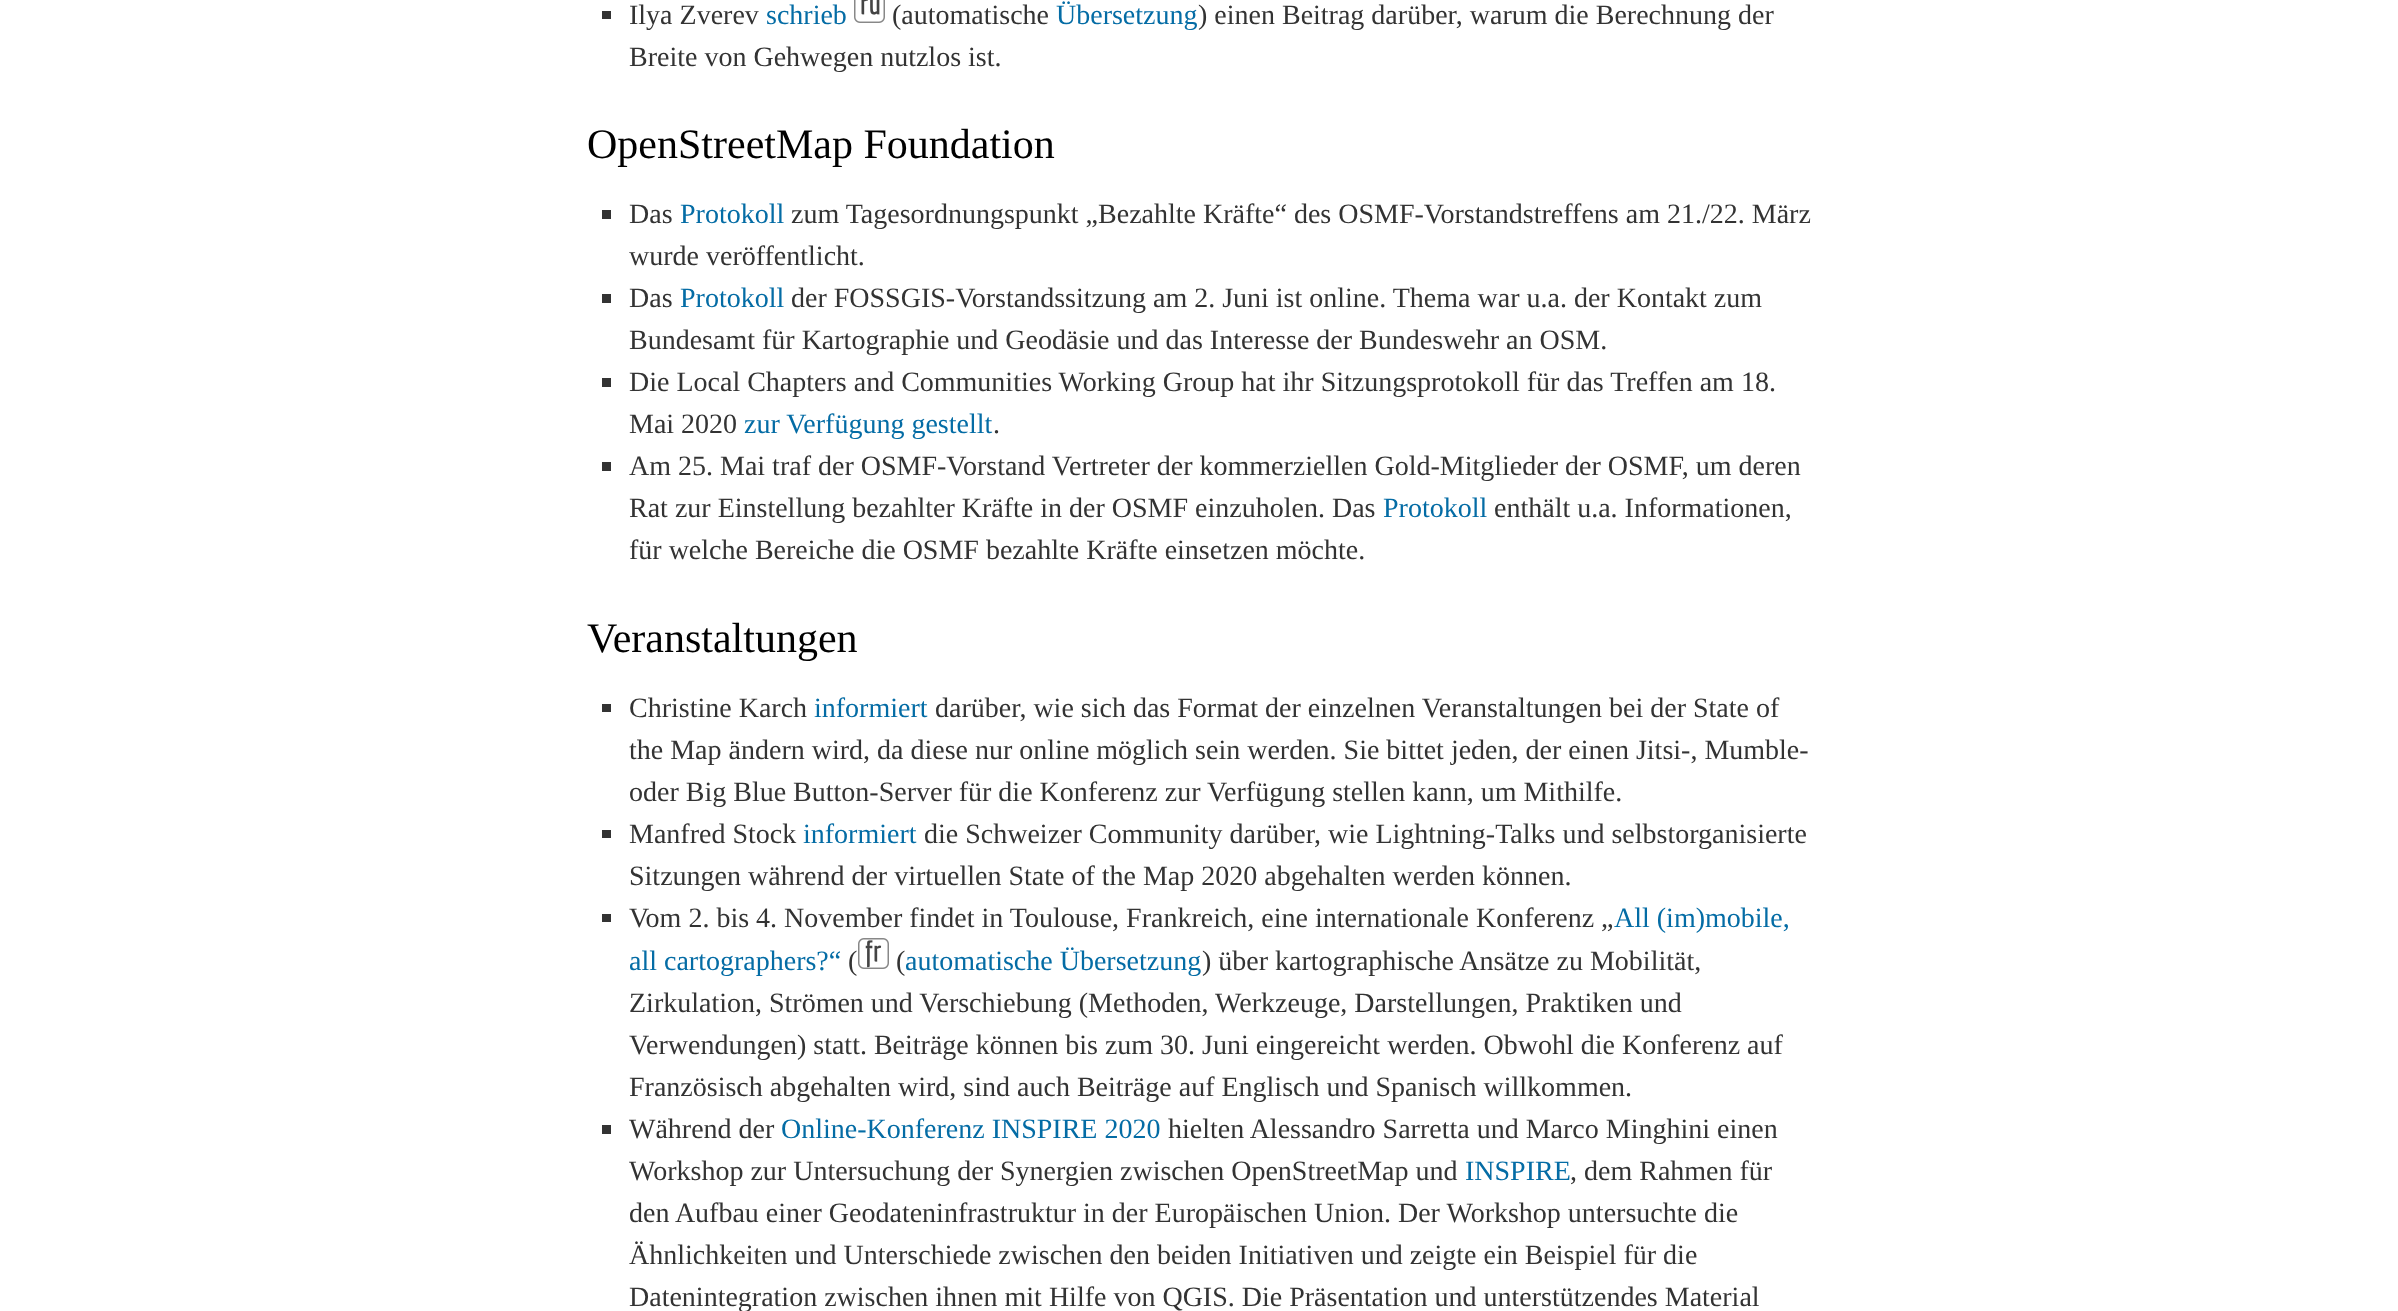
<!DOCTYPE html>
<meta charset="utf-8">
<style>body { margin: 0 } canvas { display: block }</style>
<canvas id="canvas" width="2398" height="1311"></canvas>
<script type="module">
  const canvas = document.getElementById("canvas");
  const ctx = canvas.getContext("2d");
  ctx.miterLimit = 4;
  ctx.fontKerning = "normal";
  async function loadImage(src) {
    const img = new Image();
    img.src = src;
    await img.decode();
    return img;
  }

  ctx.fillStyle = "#ffffff";
  ctx.fillRect(0, 0, 2398, 1311);
  ctx.fillStyle = "#333333";
  ctx.fillRect(602, 11, 9, 8);
  ctx.font = "28px Liberation Serif";
  ctx.fillText("Ilya Zverev", 629, 24);
  ctx.fillStyle = "#046ca5";
  ctx.fillText("schrieb", 766, 24);
  ctx.drawImage(await loadImage("img1.png"), 854, 0, 31, 23);
  ctx.fillStyle = "#333333";
  ctx.fillText("(automatische", 892, 24);
  ctx.fillStyle = "#046ca5";
  ctx.fillText("Übersetzung", 1056, 24);
  ctx.fillStyle = "#333333";
  ctx.fillText(") einen Beitrag darüber, warum die Berechnung der", 1198, 24);
  ctx.fillText("Breite von Gehwegen nutzlos ist.", 629, 66);
  ctx.font = "42px Liberation Serif";
  ctx.fillStyle = "#000000";
  ctx.fillText("OpenStreetMap Foundation", 587, 158);
  ctx.fillStyle = "#333333";
  ctx.fillRect(602, 210, 9, 9);
  ctx.font = "28px Liberation Serif";
  ctx.fillText("Das", 629, 223);
  ctx.fillStyle = "#046ca5";
  ctx.fillText("Protokoll", 680, 223);
  ctx.fillStyle = "#333333";
  ctx.fillText("zum Tagesordnungspunkt „Bezahlte Kräfte“ des OSMF-Vorstandstreffens am 21./22. März", 791, 223);
  ctx.fillText("wurde veröffentlicht.", 629, 265);
  ctx.fillRect(602, 294, 9, 9);
  ctx.fillText("Das", 629, 307);
  ctx.fillStyle = "#046ca5";
  ctx.fillText("Protokoll", 680, 307);
  ctx.fillStyle = "#333333";
  ctx.fillText("der FOSSGIS-Vorstandssitzung am 2. Juni ist online. Thema war u.a. der Kontakt zum", 791, 307);
  ctx.fillText("Bundesamt für Kartographie und Geodäsie und das Interesse der Bundeswehr an OSM.", 629, 349);
  ctx.fillRect(602, 378, 9, 9);
  ctx.fillText("Die Local Chapters and Communities Working Group hat ihr Sitzungsprotokoll für das Treffen am 18.", 629, 391);
  ctx.fillText("Mai 2020", 629, 433);
  ctx.fillStyle = "#046ca5";
  ctx.fillText("zur Verfügung gestellt", 744, 433);
  ctx.fillStyle = "#333333";
  ctx.fillText(".", 993, 433);
  ctx.fillRect(602, 462, 9, 9);
  ctx.fillText("Am 25. Mai traf der OSMF-Vorstand Vertreter der kommerziellen Gold-Mitglieder der OSMF, um deren", 629, 475);
  ctx.fillText("Rat zur Einstellung bezahlter Kräfte in der OSMF einzuholen. Das", 629, 517);
  ctx.fillStyle = "#046ca5";
  ctx.fillText("Protokoll", 1383, 517);
  ctx.fillStyle = "#333333";
  ctx.fillText("enthält u.a. Informationen,", 1494, 517);
  ctx.fillText("für welche Bereiche die OSMF bezahlte Kräfte einsetzen möchte.", 629, 559);
  ctx.font = "42px Liberation Serif";
  ctx.fillStyle = "#000000";
  ctx.fillText("Veranstaltungen", 587, 652);
  ctx.fillStyle = "#333333";
  ctx.fillRect(602, 704, 9, 8);
  ctx.font = "28px Liberation Serif";
  ctx.fillText("Christine Karch", 629, 717);
  ctx.fillStyle = "#046ca5";
  ctx.fillText("informiert", 814, 717);
  ctx.fillStyle = "#333333";
  ctx.fillText("darüber, wie sich das Format der einzelnen Veranstaltungen bei der State of", 935, 717);
  ctx.fillText("the Map ändern wird, da diese nur online möglich sein werden. Sie bittet jeden, der einen Jitsi-, Mumble-", 629, 759);
  ctx.fillText("oder Big Blue Button-Server für die Konferenz zur Verfügung stellen kann, um Mithilfe.", 629, 801);
  ctx.fillRect(602, 830, 9, 8);
  ctx.fillText("Manfred Stock", 629, 843);
  ctx.fillStyle = "#046ca5";
  ctx.fillText("informiert", 803, 843);
  ctx.fillStyle = "#333333";
  ctx.fillText("die Schweizer Community darüber, wie Lightning-Talks und selbstorganisierte", 924, 843);
  ctx.fillText("Sitzungen während der virtuellen State of the Map 2020 abgehalten werden können.", 629, 885);
  ctx.fillRect(602, 914, 9, 8);
  ctx.fillText("Vom 2. bis 4. November findet in Toulouse, Frankreich, eine internationale Konferenz „", 629, 927);
  ctx.fillStyle = "#046ca5";
  ctx.fillText("All (im)mobile,", 1614, 927);
  ctx.fillText("all cartographers?“", 629, 970);
  ctx.fillStyle = "#333333";
  ctx.fillText("(", 848, 970);
  ctx.drawImage(await loadImage("img2.png"), 858, 938, 31, 31);
  ctx.fillText("(", 896, 970);
  ctx.fillStyle = "#046ca5";
  ctx.fillText("automatische Übersetzung", 905, 970);
  ctx.fillStyle = "#333333";
  ctx.fillText(") über kartographische Ansätze zu Mobilität,", 1202, 970);
  ctx.fillText("Zirkulation, Strömen und Verschiebung (Methoden, Werkzeuge, Darstellungen, Praktiken und", 629, 1012);
  ctx.fillText("Verwendungen) statt. Beiträge können bis zum 30. Juni eingereicht werden. Obwohl die Konferenz auf", 629, 1054);
  ctx.fillText("Französisch abgehalten wird, sind auch Beiträge auf Englisch und Spanisch willkommen.", 629, 1096);
  ctx.fillRect(602, 1125, 9, 9);
  ctx.fillText("Während der", 629, 1138);
  ctx.fillStyle = "#046ca5";
  ctx.fillText("Online-Konferenz INSPIRE 2020", 781, 1138);
  ctx.fillStyle = "#333333";
  ctx.fillText("hielten Alessandro Sarretta und Marco Minghini einen", 1168, 1138);
  ctx.fillText("Workshop zur Untersuchung der Synergien zwischen OpenStreetMap und", 629, 1180);
  ctx.fillStyle = "#046ca5";
  ctx.fillText("INSPIRE", 1465, 1180);
  ctx.fillStyle = "#333333";
  ctx.fillText(", dem Rahmen für", 1570, 1180);
  ctx.fillText("den Aufbau einer Geodateninfrastruktur in der Europäischen Union. Der Workshop untersuchte die", 629, 1222);
  ctx.fillText("Ähnlichkeiten und Unterschiede zwischen den beiden Initiativen und zeigte ein Beispiel für die", 629, 1264);
  ctx.fillText("Datenintegration zwischen ihnen mit Hilfe von QGIS. Die Präsentation und unterstützendes Material", 629, 1306);
</script>
